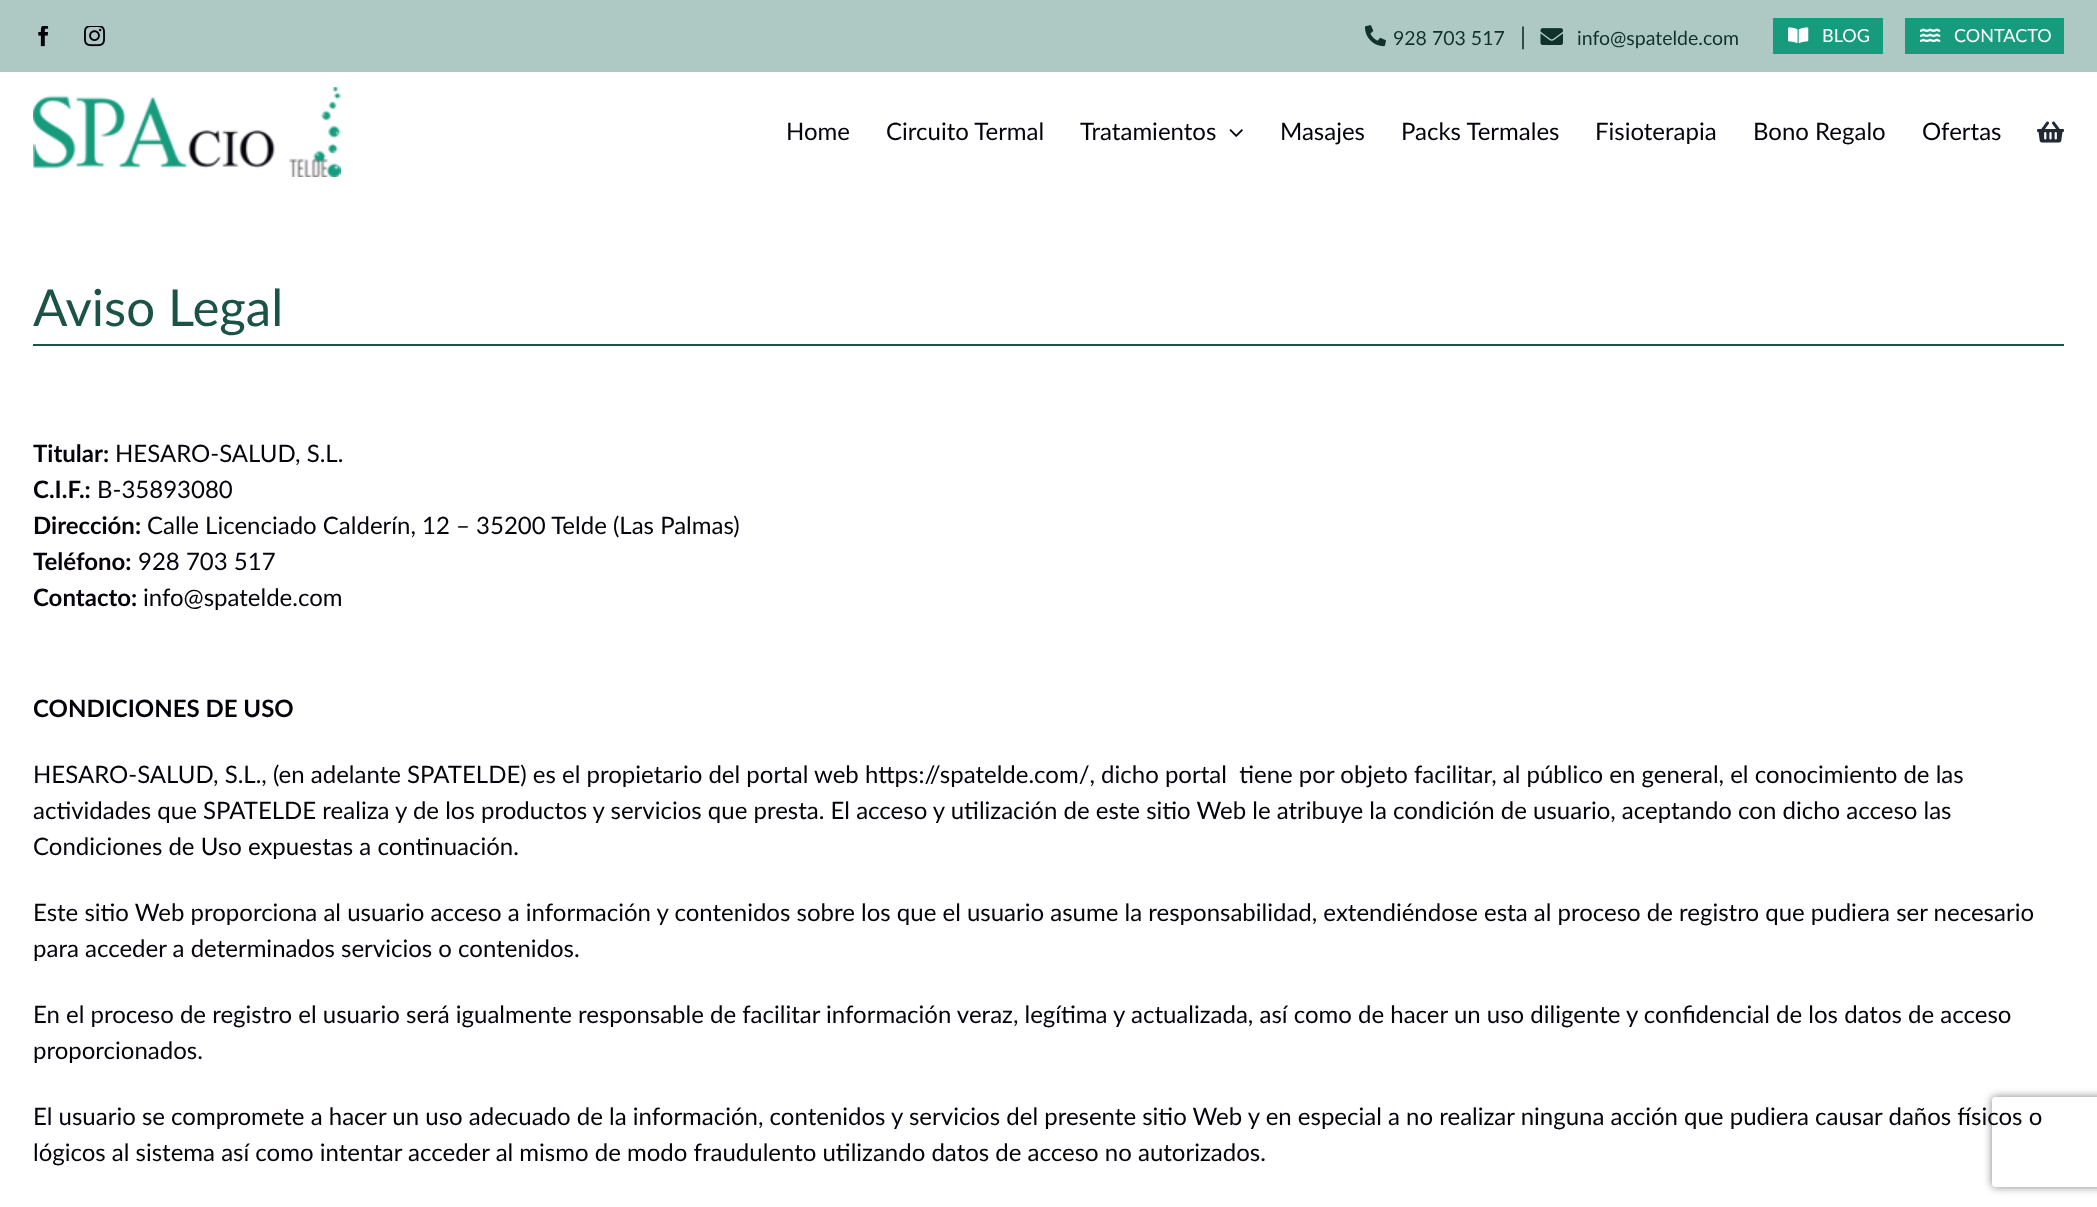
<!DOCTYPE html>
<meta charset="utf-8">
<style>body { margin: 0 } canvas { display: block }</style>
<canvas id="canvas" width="2097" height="1207"></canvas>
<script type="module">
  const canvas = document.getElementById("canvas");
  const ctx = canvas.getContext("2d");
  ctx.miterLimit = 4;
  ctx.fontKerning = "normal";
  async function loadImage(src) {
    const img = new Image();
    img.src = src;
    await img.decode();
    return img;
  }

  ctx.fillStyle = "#ffffff";
  ctx.fillRect(0, 0, 2097, 1207);
  ctx.fillStyle = "#aec9c3";
  ctx.fillRect(0, 0, 2097, 72);
  ctx.drawImage(await loadImage("img1.png"), 38, 26, 11, 21);
  ctx.drawImage(await loadImage("img2.png"), 84, 26, 21, 21);
  ctx.drawImage(await loadImage("img3.png"), 1365, 25, 21, 22);
  ctx.font = "19.5px Lato";
  ctx.fillStyle = "#10322a";
  ctx.fillText("928 703 517", 1393, 45);
  ctx.font = "24px Lato";
  ctx.fillText("|", 1520, 45);
  ctx.drawImage(await loadImage("img4.png"), 1540, 28, 23, 17);
  ctx.font = "19.5px Lato";
  ctx.fillText("info@spatelde.com", 1577, 45);
  ctx.fillStyle = "#179b7d";
  ctx.fillRect(1773, 18, 110, 36);
  ctx.drawImage(await loadImage("img5.png"), 1788, 27, 21, 17);
  ctx.font = "18px Lato";
  ctx.fillStyle = "#ffffff";
  ctx.fillText("BLOG", 1822, 42);
  ctx.fillStyle = "#179b7d";
  ctx.fillRect(1905, 18, 159, 36);
  ctx.drawImage(await loadImage("img6.png"), 1920, 28, 21, 14);
  ctx.fillStyle = "#ffffff";
  ctx.fillText("CONTACTO", 1954, 42);
  ctx.drawImage(await loadImage("img7.png"), 33, 87, 308, 90);
  ctx.font = "24px Lato";
  ctx.fillStyle = "#05020c";
  ctx.fillText("Home", 786, 140);
  ctx.fillText("Circuito Termal", 886, 140);
  ctx.fillText("Tratamientos", 1080, 140);
  ctx.drawImage(await loadImage("img8.png"), 1229, 129, 14, 8);
  ctx.fillText("Masajes", 1280, 140);
  ctx.fillText("Packs Termales", 1401, 140);
  ctx.fillText("Fisioterapia", 1595, 140);
  ctx.fillText("Bono Regalo", 1753, 140);
  ctx.fillText("Ofertas", 1922, 140);
  ctx.drawImage(await loadImage("img9.png"), 2037, 121, 27, 22);
  ctx.font = "51px Lato";
  ctx.fillStyle = "#1b5447";
  ctx.fillText("Aviso Legal", 33, 326);
  ctx.fillRect(33, 344, 2031, 2);
  ctx.font = "bold 24px Lato";
  ctx.fillStyle = "#05020c";
  ctx.fillText("Titular:", 33, 462);
  ctx.font = "24px Lato";
  ctx.fillText("HESARO-SALUD, S.L.", 115, 462);
  ctx.font = "bold 24px Lato";
  ctx.fillText("C.I.F.:", 33, 498);
  ctx.font = "24px Lato";
  ctx.fillText("B-35893080", 97, 498);
  ctx.font = "bold 24px Lato";
  ctx.fillText("Dirección:", 33, 534);
  ctx.font = "24px Lato";
  ctx.fillText("Calle Licenciado Calderín, 12 – 35200 Telde (Las Palmas)", 147, 534);
  ctx.font = "bold 24px Lato";
  ctx.fillText("Teléfono:", 33, 570);
  ctx.font = "24px Lato";
  ctx.fillText("928 703 517", 138, 570);
  ctx.font = "bold 24px Lato";
  ctx.fillText("Contacto:", 33, 606);
  ctx.font = "24px Lato";
  ctx.fillText("info@spatelde.com", 143, 606);
  ctx.font = "bold 24px Lato";
  ctx.fillText("CONDICIONES DE USO", 33, 717);
  ctx.font = "24px Lato";
  ctx.fillText("HESARO-SALUD, S.L., (en adelante SPATELDE) es el propietario del portal web https://spatelde.com/, dicho portal  tiene por objeto facilitar, al público en general, el conocimiento de las", 33, 783);
  ctx.fillText("actividades que SPATELDE realiza y de los productos y servicios que presta. El acceso y utilización de este sitio Web le atribuye la condición de usuario, aceptando con dicho acceso las", 33, 819);
  ctx.fillText("Condiciones de Uso expuestas a continuación.", 33, 855);
  ctx.fillText("Este sitio Web proporciona al usuario acceso a información y contenidos sobre los que el usuario asume la responsabilidad, extendiéndose esta al proceso de registro que pudiera ser necesario", 33, 921);
  ctx.fillText("para acceder a determinados servicios o contenidos.", 33, 957);
  ctx.fillText("En el proceso de registro el usuario será igualmente responsable de facilitar información veraz, legítima y actualizada, así como de hacer un uso diligente y confidencial de los datos de acceso", 33, 1023);
  ctx.fillText("proporcionados.", 33, 1059);
  ctx.save();
  ctx.beginPath();
  ctx.moveTo(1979, 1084);
  ctx.lineTo(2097, 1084);
  ctx.lineTo(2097, 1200);
  ctx.lineTo(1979, 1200);
  ctx.closePath();
  ctx.moveTo(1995, 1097);
  ctx.lineTo(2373, 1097);
  ctx.bezierCurveTo(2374.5, 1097, 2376, 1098.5, 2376, 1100);
  ctx.lineTo(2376, 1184);
  ctx.bezierCurveTo(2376, 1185.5, 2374.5, 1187, 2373, 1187);
  ctx.lineTo(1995, 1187);
  ctx.bezierCurveTo(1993.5, 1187, 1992, 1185.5, 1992, 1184);
  ctx.lineTo(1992, 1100);
  ctx.bezierCurveTo(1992, 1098.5, 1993.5, 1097, 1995, 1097);
  ctx.closePath();
  ctx.clip("evenodd");
  ctx.fillStyle = "#808080";
  ctx.filter = "blur(4px)";
  ctx.beginPath();
  ctx.roundRect(1992, 1097, 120, 90, 3);
  ctx.fill();
  ctx.filter = "none";
  ctx.restore();
  ctx.fillText("El usuario se compromete a hacer un uso adecuado de la información, contenidos y servicios del presente sitio Web y en especial a no realizar ninguna acción que pudiera causar daños físicos o", 33, 1125);
  ctx.fillText("lógicos al sistema así como intentar acceder al mismo de modo fraudulento utilizando datos de acceso no autorizados.", 33, 1161);
</script>
